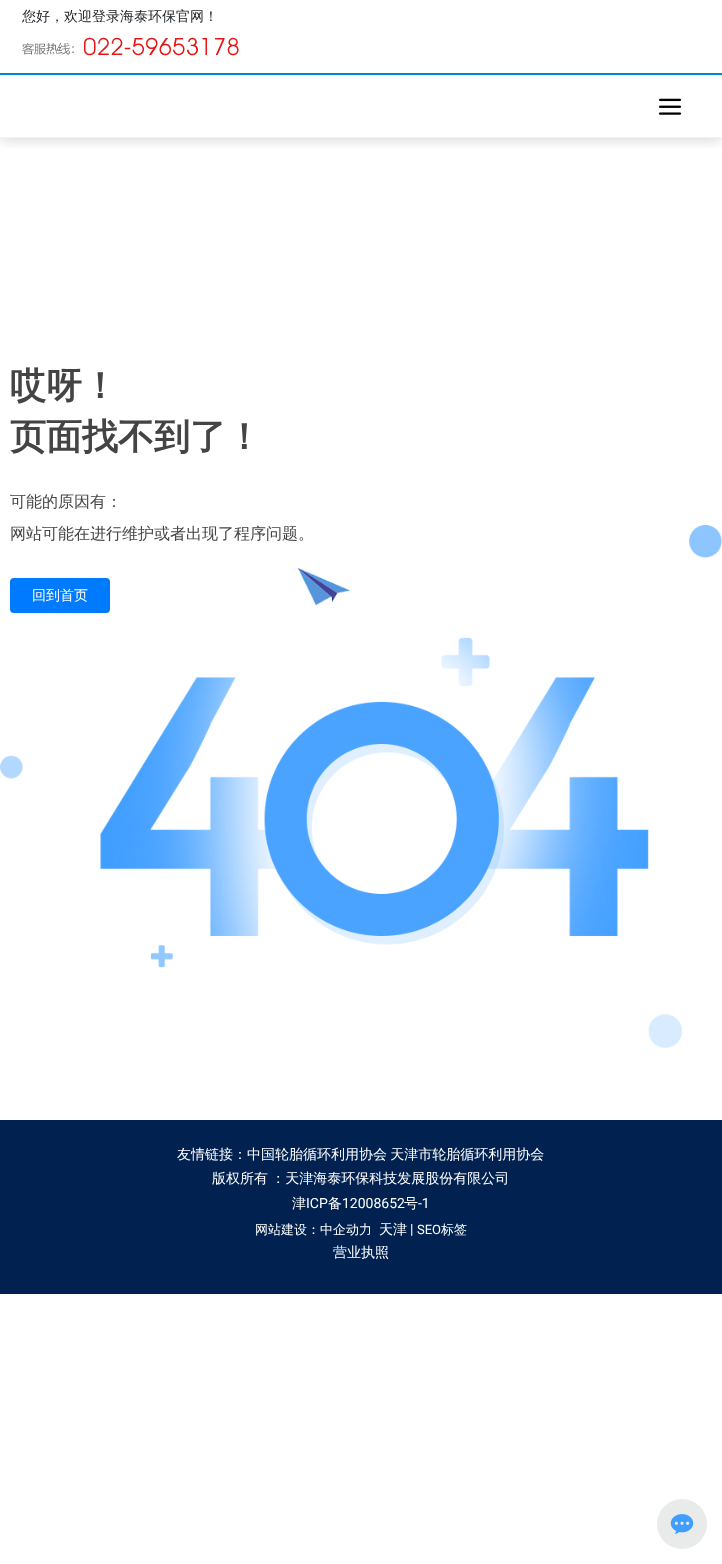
<!DOCTYPE html>
<meta charset="utf-8">
<style>body { margin: 0 } canvas { display: block }</style>
<canvas id="canvas" width="722" height="1564"></canvas>
<script type="module">
  const canvas = document.getElementById("canvas");
  const ctx = canvas.getContext("2d");
  ctx.miterLimit = 4;
  ctx.fontKerning = "normal";
  async function loadImage(src) {
    const img = new Image();
    img.src = src;
    await img.decode();
    return img;
  }

  ctx.fillStyle = "#ffffff";
  ctx.fillRect(0, 0, 722, 1564);
  ctx.save();
  ctx.beginPath();
  ctx.rect(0, 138, 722, 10);
  ctx.clip();
  ctx.fillStyle = "rgba(0, 0, 0, 0.2)";
  ctx.filter = "blur(7.5px)";
  ctx.beginPath();
  ctx.rect(0, 0, 722, 138);
  ctx.fill();
  ctx.filter = "none";
  ctx.restore();
  ctx.fillStyle = "#f2f2f2";
  ctx.fillRect(0, 137, 722, 1);
  ctx.font = "500 14px WenQuanYi Zen Hei";
  ctx.fillStyle = "#212529";
  ctx.fillText("您好，欢迎登录海泰环保官网！", 22, 21);
  ctx.drawImage(await loadImage("img1.png"), 22, 37, 217, 19);
  ctx.fillStyle = "#0085dc";
  ctx.fillRect(0, 73, 722, 2);
  ctx.drawImage(await loadImage("img2.png"), 658, 98, 24, 17);
  ctx.font = "bold 36px WenQuanYi Zen Hei";
  ctx.fillStyle = "#444444";
  ctx.fillText("哎呀！", 10, 398);
  ctx.fillText("页面找不到了！", 10, 449);
  ctx.font = "500 16px WenQuanYi Zen Hei";
  ctx.fillText("可能的原因有：", 10, 507);
  ctx.fillText("网站可能在进行维护或者出现了程序问题。", 10, 539);
  ctx.drawImage(await loadImage("img3.png"), 0, 525, 722, 523);
  ctx.fillStyle = "#007bff";
  ctx.beginPath();
  ctx.roundRect(10, 578, 100, 35, 4);
  ctx.fill();
  ctx.font = "500 14px WenQuanYi Zen Hei";
  ctx.fillStyle = "#ffffff";
  ctx.fillText("回到首页", 32, 600);
  ctx.fillStyle = "#012251";
  ctx.fillRect(0, 1120, 722, 174);
  ctx.wordSpacing = "-1px";
  ctx.fillStyle = "#ffffff";
  ctx.fillText("友情链接：中国轮胎循环利用协会 天津市轮胎循环利用协会", 177, 1159);
  ctx.fillText("版权所有 ：天津海泰环保科技发展股份有限公司", 212, 1183);
  ctx.wordSpacing = "0px";
  ctx.fillText("津", 292, 1208);
  ctx.font = "14px Roboto";
  ctx.fillText("ICP", 306, 1208);
  ctx.font = "500 14px WenQuanYi Zen Hei";
  ctx.fillText("备", 328, 1208);
  ctx.font = "14px Roboto";
  ctx.fillText("12008652", 342, 1208);
  ctx.font = "500 14px WenQuanYi Zen Hei";
  ctx.fillText("号", 404, 1208);
  ctx.font = "14px Roboto";
  ctx.fillText("-1", 418, 1208);
  ctx.font = "500 13px WenQuanYi Zen Hei";
  ctx.fillText("网站建设：中企动力", 255, 1234);
  ctx.font = "500 14px WenQuanYi Zen Hei";
  ctx.fillText("天津", 379, 1234);
  ctx.font = "14px Roboto";
  ctx.fillText("|", 410, 1234);
  ctx.font = "13px Roboto";
  ctx.fillText("SEO", 417, 1234);
  ctx.font = "500 13px WenQuanYi Zen Hei";
  ctx.fillText("标签", 441, 1234);
  ctx.font = "500 14px WenQuanYi Zen Hei";
  ctx.fillText("营业执照", 333, 1257);
  ctx.fillStyle = "#e9ebeb";
  ctx.beginPath();
  ctx.arc(682, 1524, 25, 0, Math.PI * 2);
  ctx.fill();
  ctx.drawImage(await loadImage("img4.png"), 670, 1514, 24, 20);
</script>
